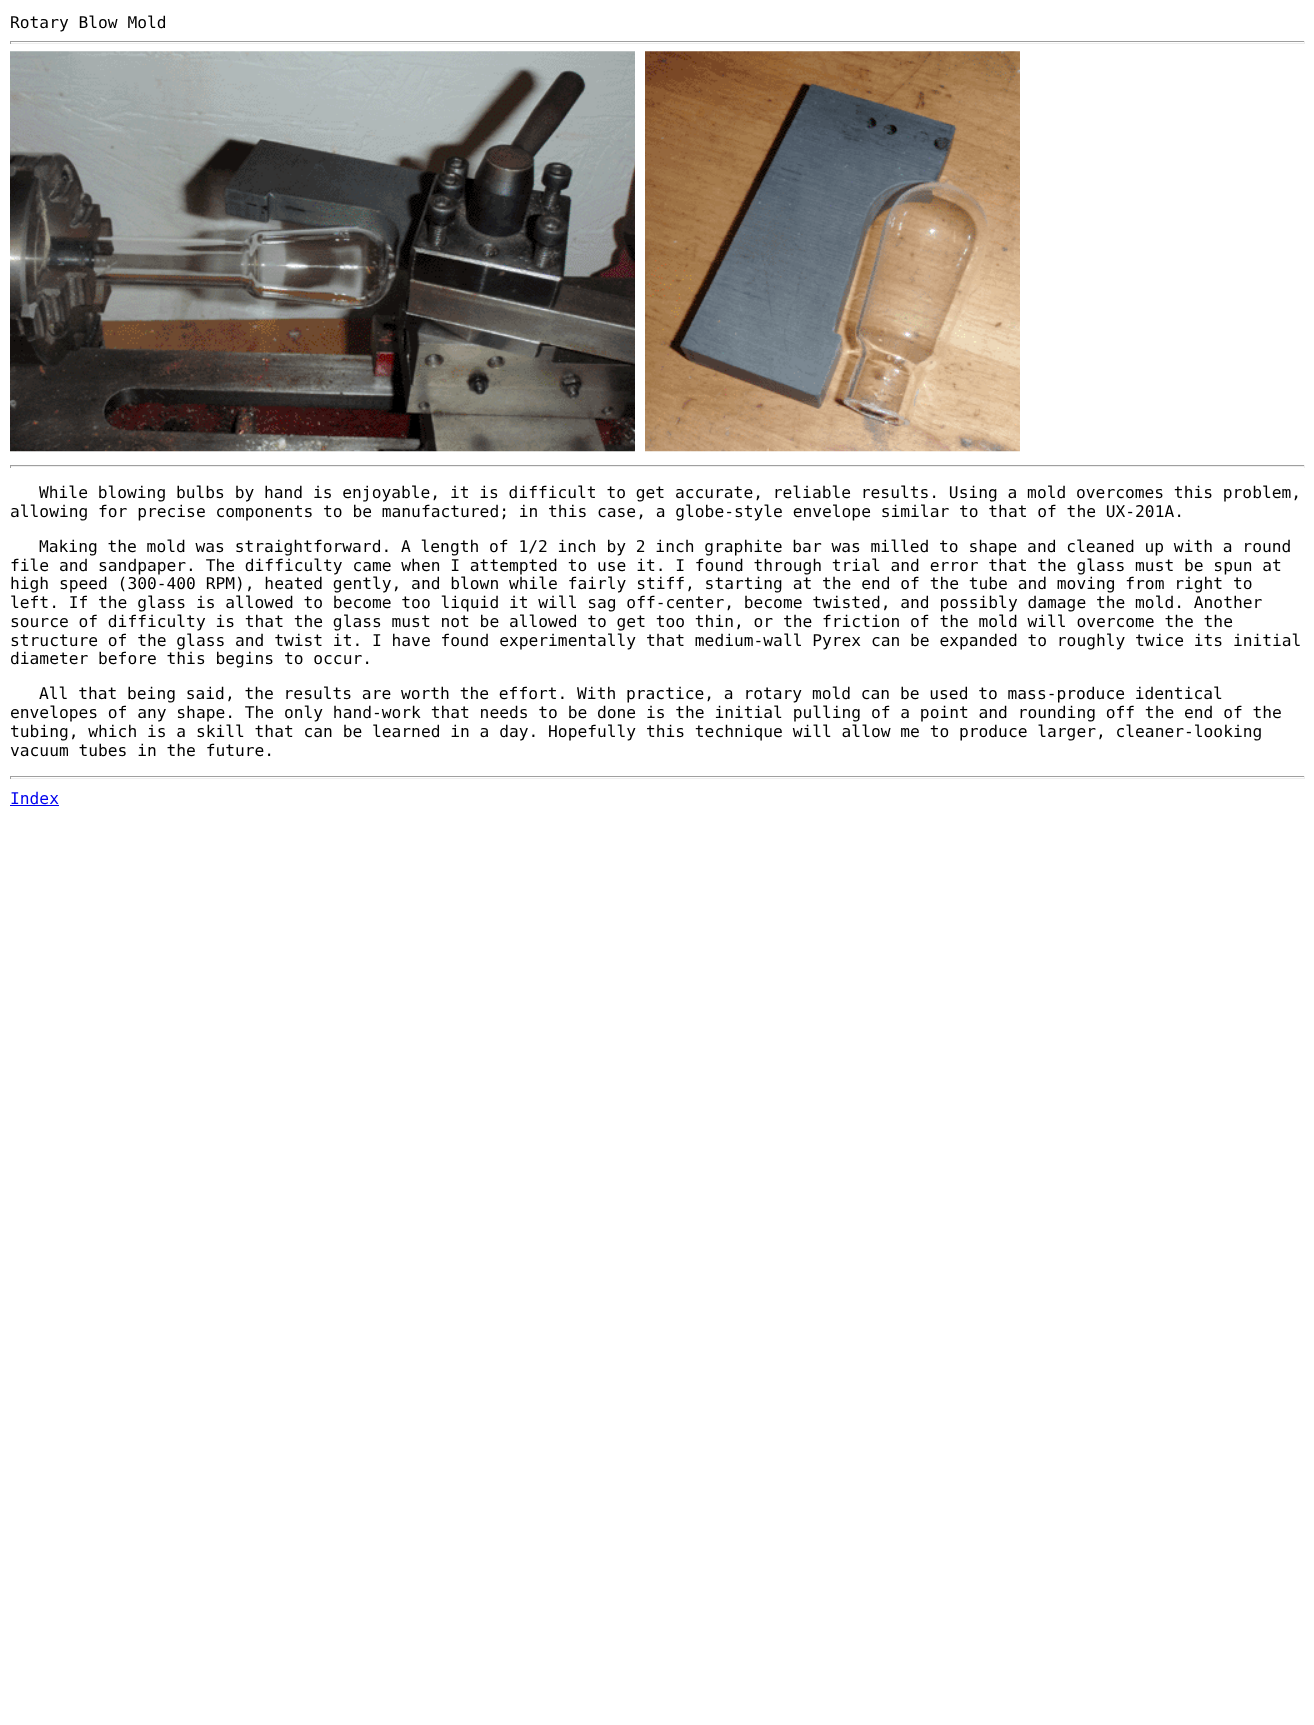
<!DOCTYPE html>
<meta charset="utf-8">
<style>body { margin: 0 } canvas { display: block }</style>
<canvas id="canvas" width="1314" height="1725"></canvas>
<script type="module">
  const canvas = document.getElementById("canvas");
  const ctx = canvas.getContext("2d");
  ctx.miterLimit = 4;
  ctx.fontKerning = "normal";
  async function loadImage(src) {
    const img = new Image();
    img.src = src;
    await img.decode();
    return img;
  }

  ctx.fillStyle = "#ffffff";
  ctx.fillRect(0, 0, 1314, 1725);
  ctx.font = "16.25px DejaVu Sans Mono";
  ctx.fillStyle = "#000000";
  ctx.fillText("Rotary Blow Mold", 10, 28);
  ctx.fillStyle = "#9f9f9f";
  ctx.fillRect(10, 41, 1295, 1);
  ctx.fillStyle = "#eeeeee";
  ctx.fillRect(1304, 41, 1, 3);
  ctx.fillRect(10, 43, 1295, 1);
  ctx.fillStyle = "#9f9f9f";
  ctx.fillRect(10, 41, 1, 3);
  ctx.drawImage(await loadImage("img1.png"), 10, 51, 625, 401);
  ctx.drawImage(await loadImage("img2.png"), 645, 51, 375, 401);
  ctx.fillRect(10, 465, 1295, 1);
  ctx.fillStyle = "#eeeeee";
  ctx.fillRect(1304, 465, 1, 3);
  ctx.fillRect(10, 466, 1295, 1);
  ctx.fillStyle = "#9f9f9f";
  ctx.fillRect(10, 465, 1, 3);
  ctx.fillStyle = "#000000";
  ctx.fillText("While blowing bulbs by hand is enjoyable, it is difficult to get accurate, reliable results. Using a mold overcomes this problem,", 39, 498);
  ctx.fillText("allowing for precise components to be manufactured; in this case, a globe-style envelope similar to that of the UX-201A.", 10, 517);
  ctx.fillText("Making the mold was straightforward. A length of 1/2 inch by 2 inch graphite bar was milled to shape and cleaned up with a round", 39, 552);
  ctx.fillText("file and sandpaper. The difficulty came when I attempted to use it. I found through trial and error that the glass must be spun at", 10, 571);
  ctx.fillText("high speed (300-400 RPM), heated gently, and blown while fairly stiff, starting at the end of the tube and moving from right to", 10, 589);
  ctx.fillText("left. If the glass is allowed to become too liquid it will sag off-center, become twisted, and possibly damage the mold. Another", 10, 608);
  ctx.fillText("source of difficulty is that the glass must not be allowed to get too thin, or the friction of the mold will overcome the the", 10, 627);
  ctx.fillText("structure of the glass and twist it. I have found experimentally that medium-wall Pyrex can be expanded to roughly twice its initial", 10, 646);
  ctx.fillText("diameter before this begins to occur.", 10, 664);
  ctx.fillText("All that being said, the results are worth the effort. With practice, a rotary mold can be used to mass-produce identical", 39, 699);
  ctx.fillText("envelopes of any shape. The only hand-work that needs to be done is the initial pulling of a point and rounding off the end of the", 10, 718);
  ctx.fillText("tubing, which is a skill that can be learned in a day. Hopefully this technique will allow me to produce larger, cleaner-looking", 10, 737);
  ctx.fillText("vacuum tubes in the future.", 10, 756);
  ctx.fillStyle = "#9f9f9f";
  ctx.fillRect(10, 776, 1295, 1);
  ctx.fillStyle = "#eeeeee";
  ctx.fillRect(1304, 776, 1, 3);
  ctx.fillRect(10, 778, 1295, 1);
  ctx.fillStyle = "#9f9f9f";
  ctx.fillRect(10, 776, 1, 3);
  ctx.fillStyle = "#0000ee";
  ctx.fillText("Index", 10, 804);
  ctx.fillRect(10, 805, 49, 1);
</script>
